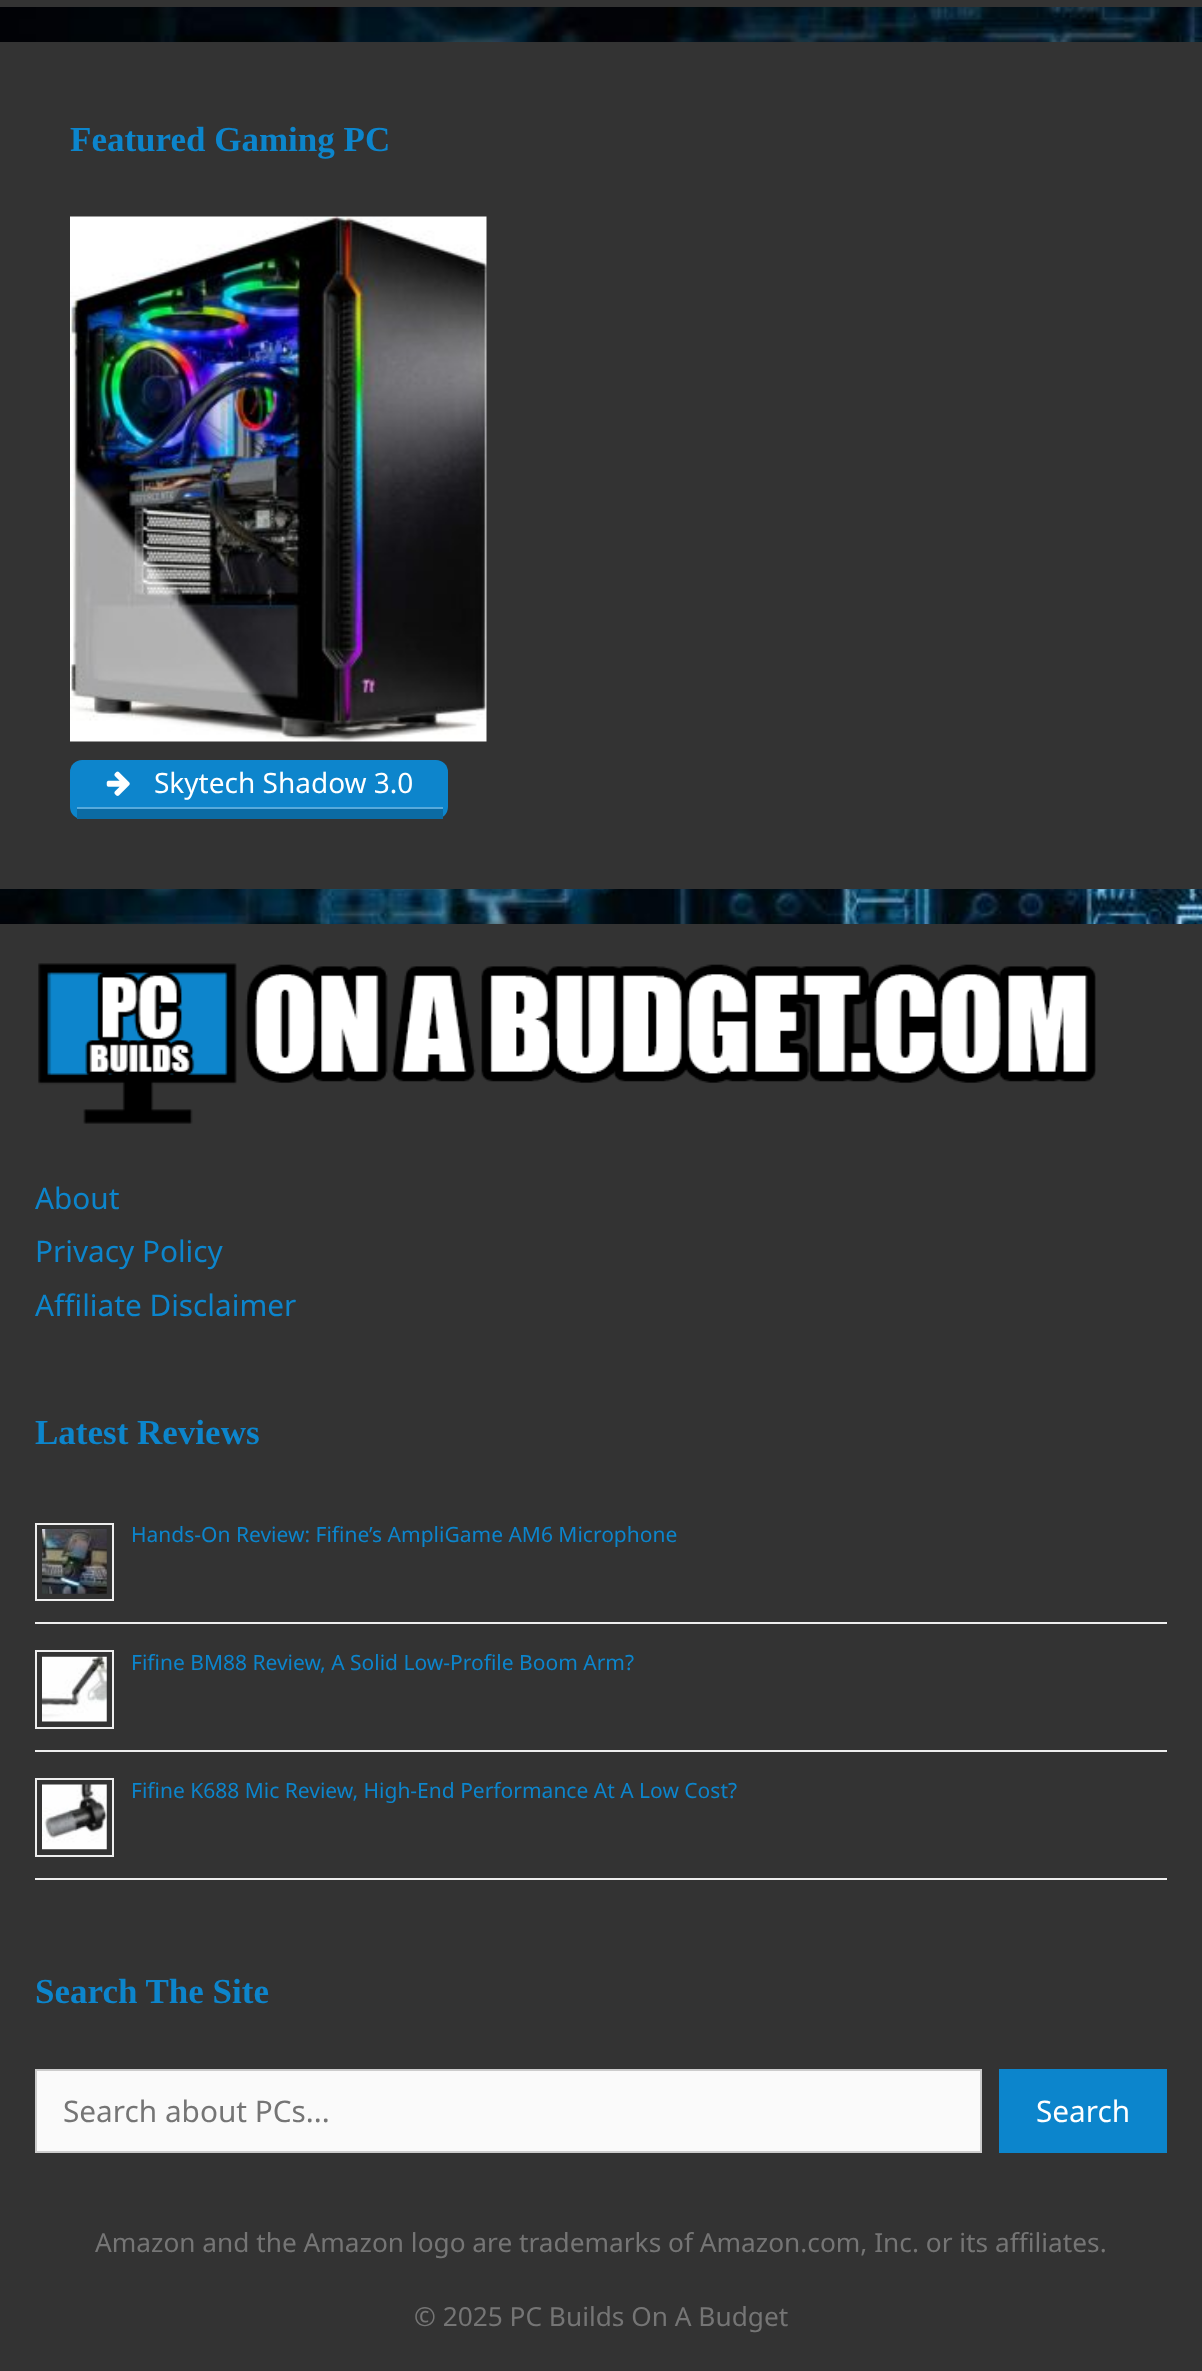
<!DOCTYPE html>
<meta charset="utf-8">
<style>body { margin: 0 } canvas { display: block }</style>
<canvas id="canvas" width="1202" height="2371"></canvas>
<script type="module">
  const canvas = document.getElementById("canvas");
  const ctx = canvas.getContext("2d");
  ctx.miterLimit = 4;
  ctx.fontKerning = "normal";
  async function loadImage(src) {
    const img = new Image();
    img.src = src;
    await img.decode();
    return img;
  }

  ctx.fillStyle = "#ffffff";
  ctx.fillRect(0, 0, 1202, 2371);
  ctx.drawImage(await loadImage("img1.png"), 0, 7, 1202, 917);
  ctx.fillStyle = "#333333";
  ctx.fillRect(0, 0, 1202, 7);
  ctx.fillRect(0, 42, 1202, 847);
  ctx.font = "bold 35px Liberation Serif";
  ctx.fillStyle = "#0c85cc";
  ctx.fillText("Featured Gaming PC", 70, 151);
  ctx.drawImage(await loadImage("img2.png"), 70, 216, 417, 526);
  ctx.fillStyle = "#0d85cc";
  ctx.beginPath();
  ctx.roundRect(70, 760, 378, 59, 12);
  ctx.fill();
  ctx.fillStyle = "#0b6ba4";
  ctx.fillRect(77, 809, 366, 10);
  ctx.fillStyle = "#56aadc";
  ctx.fillRect(77, 807, 366, 2);
  ctx.drawImage(await loadImage("img3.png"), 106, 771, 24, 25);
  ctx.font = "28px Noto Sans";
  ctx.fillStyle = "#ffffff";
  ctx.fillText("Skytech Shadow 3.0", 154, 793);
  ctx.fillStyle = "#333333";
  ctx.fillRect(0, 924, 1202, 1447);
  ctx.drawImage(await loadImage("img4.png"), 38, 963, 1058, 161);
  ctx.font = "29.75px Noto Sans";
  ctx.fillStyle = "#0c85cc";
  ctx.fillText("About", 35, 1209);
  ctx.fillText("Privacy Policy", 35, 1262);
  ctx.fillText("Affiliate Disclaimer", 35, 1316);
  ctx.font = "bold 35px Liberation Serif";
  ctx.fillText("Latest Reviews", 35, 1444);
  ctx.fillStyle = "#eeeeee";
  ctx.fillRect(35, 1622, 1132, 2);
  ctx.strokeStyle = "#eeeeee";
  ctx.lineWidth = 2;
  ctx.strokeRect(36, 1524, 77, 76);
  ctx.drawImage(await loadImage("img5.png"), 42, 1529, 65, 65);
  ctx.font = "21px Noto Sans";
  ctx.fillStyle = "#0c85cc";
  ctx.fillText("Hands-On Review: Fifine’s AmpliGame AM6 Microphone", 131, 1542);
  ctx.fillStyle = "#eeeeee";
  ctx.fillRect(35, 1750, 1132, 2);
  ctx.strokeRect(36, 1651, 77, 77);
  ctx.drawImage(await loadImage("img6.png"), 42, 1656, 65, 66);
  ctx.fillStyle = "#0c85cc";
  ctx.fillText("Fifine BM88 Review, A Solid Low-Profile Boom Arm?", 131, 1670);
  ctx.fillStyle = "#eeeeee";
  ctx.fillRect(35, 1878, 1132, 2);
  ctx.strokeRect(36, 1779, 77, 77);
  ctx.drawImage(await loadImage("img7.png"), 42, 1784, 65, 66);
  ctx.fillStyle = "#0c85cc";
  ctx.fillText("Fifine K688 Mic Review, High-End Performance At A Low Cost?", 131, 1798);
  ctx.font = "bold 35px Liberation Serif";
  ctx.fillText("Search The Site", 35, 2003);
  ctx.fillStyle = "#fafafa";
  ctx.beginPath();
  ctx.rect(36, 2070, 945, 82);
  ctx.fill();
  ctx.strokeStyle = "#cccccc";
  ctx.stroke();
  ctx.font = "29.75px Noto Sans";
  ctx.fillStyle = "#757575";
  ctx.fillText("Search about PCs...", 63, 2122);
  ctx.fillStyle = "#0c85cc";
  ctx.fillRect(999, 2069, 168, 84);
  ctx.fillStyle = "#ffffff";
  ctx.fillText("Search", 1036, 2122);
  ctx.font = "26.25px Noto Sans";
  ctx.fillStyle = "#757575";
  ctx.fillText("Amazon and the Amazon logo are trademarks of Amazon.com, Inc. or its affiliates.", 95, 2252);
  ctx.fillText("© 2025 PC Builds On A Budget", 414, 2326);
</script>
